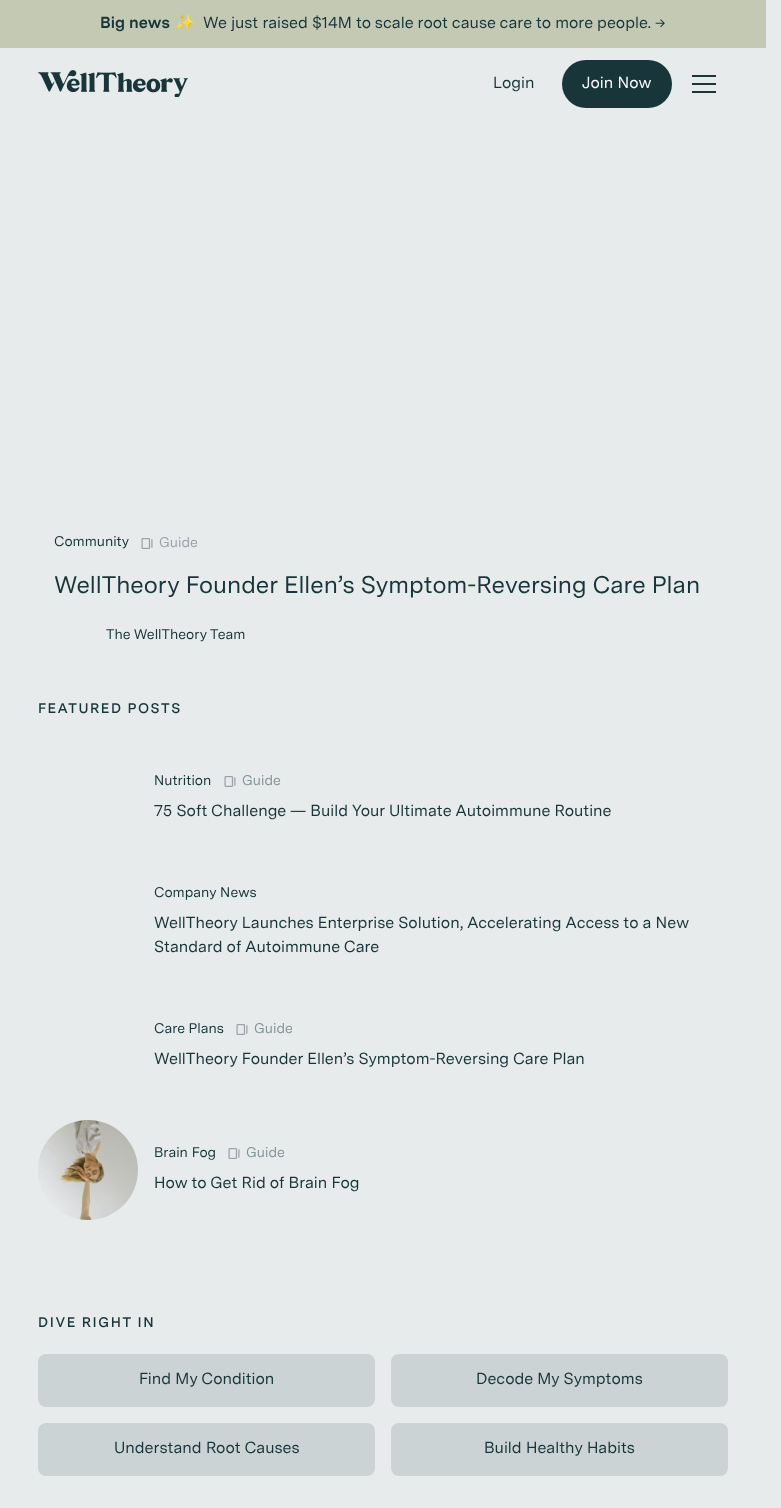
<!DOCTYPE html>
<meta charset="utf-8">
<style>body { margin: 0 } canvas { display: block }</style>
<canvas id="canvas" width="781" height="1508"></canvas>
<script type="module">
  const canvas = document.getElementById("canvas");
  const ctx = canvas.getContext("2d");
  ctx.miterLimit = 4;
  ctx.fontKerning = "normal";
  async function loadImage(src) {
    const img = new Image();
    img.src = src;
    await img.decode();
    return img;
  }

  ctx.fillStyle = "#e8ebeb";
  ctx.fillRect(0, 0, 781, 1508);
  ctx.fillStyle = "#c4c9b4";
  ctx.fillRect(0, 0, 766, 48);
  ctx.font = "bold 16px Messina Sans";
  ctx.fillStyle = "#18353a";
  ctx.fillText("Big news", 100, 28);
  ctx.font = "16px Noto Color Emoji";
  ctx.fillText("✨", 175, 28);
  ctx.font = "16px Messina Sans";
  ctx.fillText("We just raised $14M to scale root cause care to more people. →", 203, 28);
  ctx.drawImage(await loadImage("img1.png"), 38, 70, 150, 27);
  ctx.fillText("Login", 493, 88);
  ctx.beginPath();
  ctx.roundRect(562, 60, 110, 48, 24);
  ctx.fill();
  ctx.fillStyle = "#ffffff";
  ctx.fillText("Join Now", 582, 88);
  ctx.fillStyle = "#18353a";
  ctx.fillRect(692, 75, 24, 2);
  ctx.fillRect(692, 83, 24, 2);
  ctx.fillRect(692, 91, 24, 2);
  ctx.font = "14px Messina Sans";
  ctx.fillText("Community", 54, 546);
  ctx.drawImage(await loadImage("img2.png"), 141, 538, 12, 11);
  ctx.fillStyle = "#9f9fa9";
  ctx.fillText("Guide", 159, 547);
  ctx.font = "24px Messina Sans";
  ctx.fillStyle = "#18353a";
  ctx.fillText("WellTheory Founder Ellen’s Symptom-Reversing Care Plan", 54, 593);
  ctx.font = "14px Messina Sans";
  ctx.fillText("The WellTheory Team", 106, 639);
  ctx.letterSpacing = "1.6px";
  ctx.font = "600 14px Messina Sans";
  ctx.fillText("FEATURED POSTS", 38, 713);
  ctx.letterSpacing = "0px";
  ctx.font = "14px Messina Sans";
  ctx.fillText("Nutrition", 154, 785);
  ctx.drawImage(await loadImage("img2.png"), 224, 776, 12, 11);
  ctx.fillStyle = "#859498";
  ctx.fillText("Guide", 242, 785);
  ctx.font = "16px Messina Sans";
  ctx.fillStyle = "#18353a";
  ctx.fillText("75 Soft Challenge — Build Your Ultimate Autoimmune Routine", 154, 816);
  ctx.font = "14px Messina Sans";
  ctx.fillText("Company News", 154, 897);
  ctx.font = "16px Messina Sans";
  ctx.fillText("WellTheory Launches Enterprise Solution, Accelerating Access to a New", 154, 928);
  ctx.fillText("Standard of Autoimmune Care", 154, 952);
  ctx.font = "14px Messina Sans";
  ctx.fillText("Care Plans", 154, 1033);
  ctx.drawImage(await loadImage("img2.png"), 236, 1024, 12, 11);
  ctx.fillStyle = "#859498";
  ctx.fillText("Guide", 254, 1033);
  ctx.font = "16px Messina Sans";
  ctx.fillStyle = "#18353a";
  ctx.fillText("WellTheory Founder Ellen’s Symptom-Reversing Care Plan", 154, 1064);
  ctx.drawImage(await loadImage("img3.png"), 38, 1120, 100, 100);
  ctx.font = "14px Messina Sans";
  ctx.fillText("Brain Fog", 154, 1157);
  ctx.drawImage(await loadImage("img2.png"), 228, 1148, 12, 11);
  ctx.fillStyle = "#859498";
  ctx.fillText("Guide", 246, 1157);
  ctx.font = "16px Messina Sans";
  ctx.fillStyle = "#18353a";
  ctx.fillText("How to Get Rid of Brain Fog", 154, 1188);
  ctx.letterSpacing = "1.6px";
  ctx.font = "600 14px Messina Sans";
  ctx.fillText("DIVE RIGHT IN", 38, 1327);
  ctx.fillStyle = "#ccd3d4";
  ctx.beginPath();
  ctx.roundRect(38, 1354, 337, 53, 8);
  ctx.fill();
  ctx.letterSpacing = "0px";
  ctx.font = "16px Messina Sans";
  ctx.fillStyle = "#18353a";
  ctx.fillText("Find My Condition", 139, 1384);
  ctx.fillStyle = "#ccd3d4";
  ctx.beginPath();
  ctx.roundRect(391, 1354, 337, 53, 8);
  ctx.fill();
  ctx.fillStyle = "#18353a";
  ctx.fillText("Decode My Symptoms", 476, 1384);
  ctx.fillStyle = "#ccd3d4";
  ctx.beginPath();
  ctx.roundRect(38, 1423, 337, 53, 8);
  ctx.fill();
  ctx.fillStyle = "#18353a";
  ctx.fillText("Understand Root Causes", 114, 1453);
  ctx.fillStyle = "#ccd3d4";
  ctx.beginPath();
  ctx.roundRect(391, 1423, 337, 53, 8);
  ctx.fill();
  ctx.fillStyle = "#18353a";
  ctx.fillText("Build Healthy Habits", 484, 1453);
</script>
